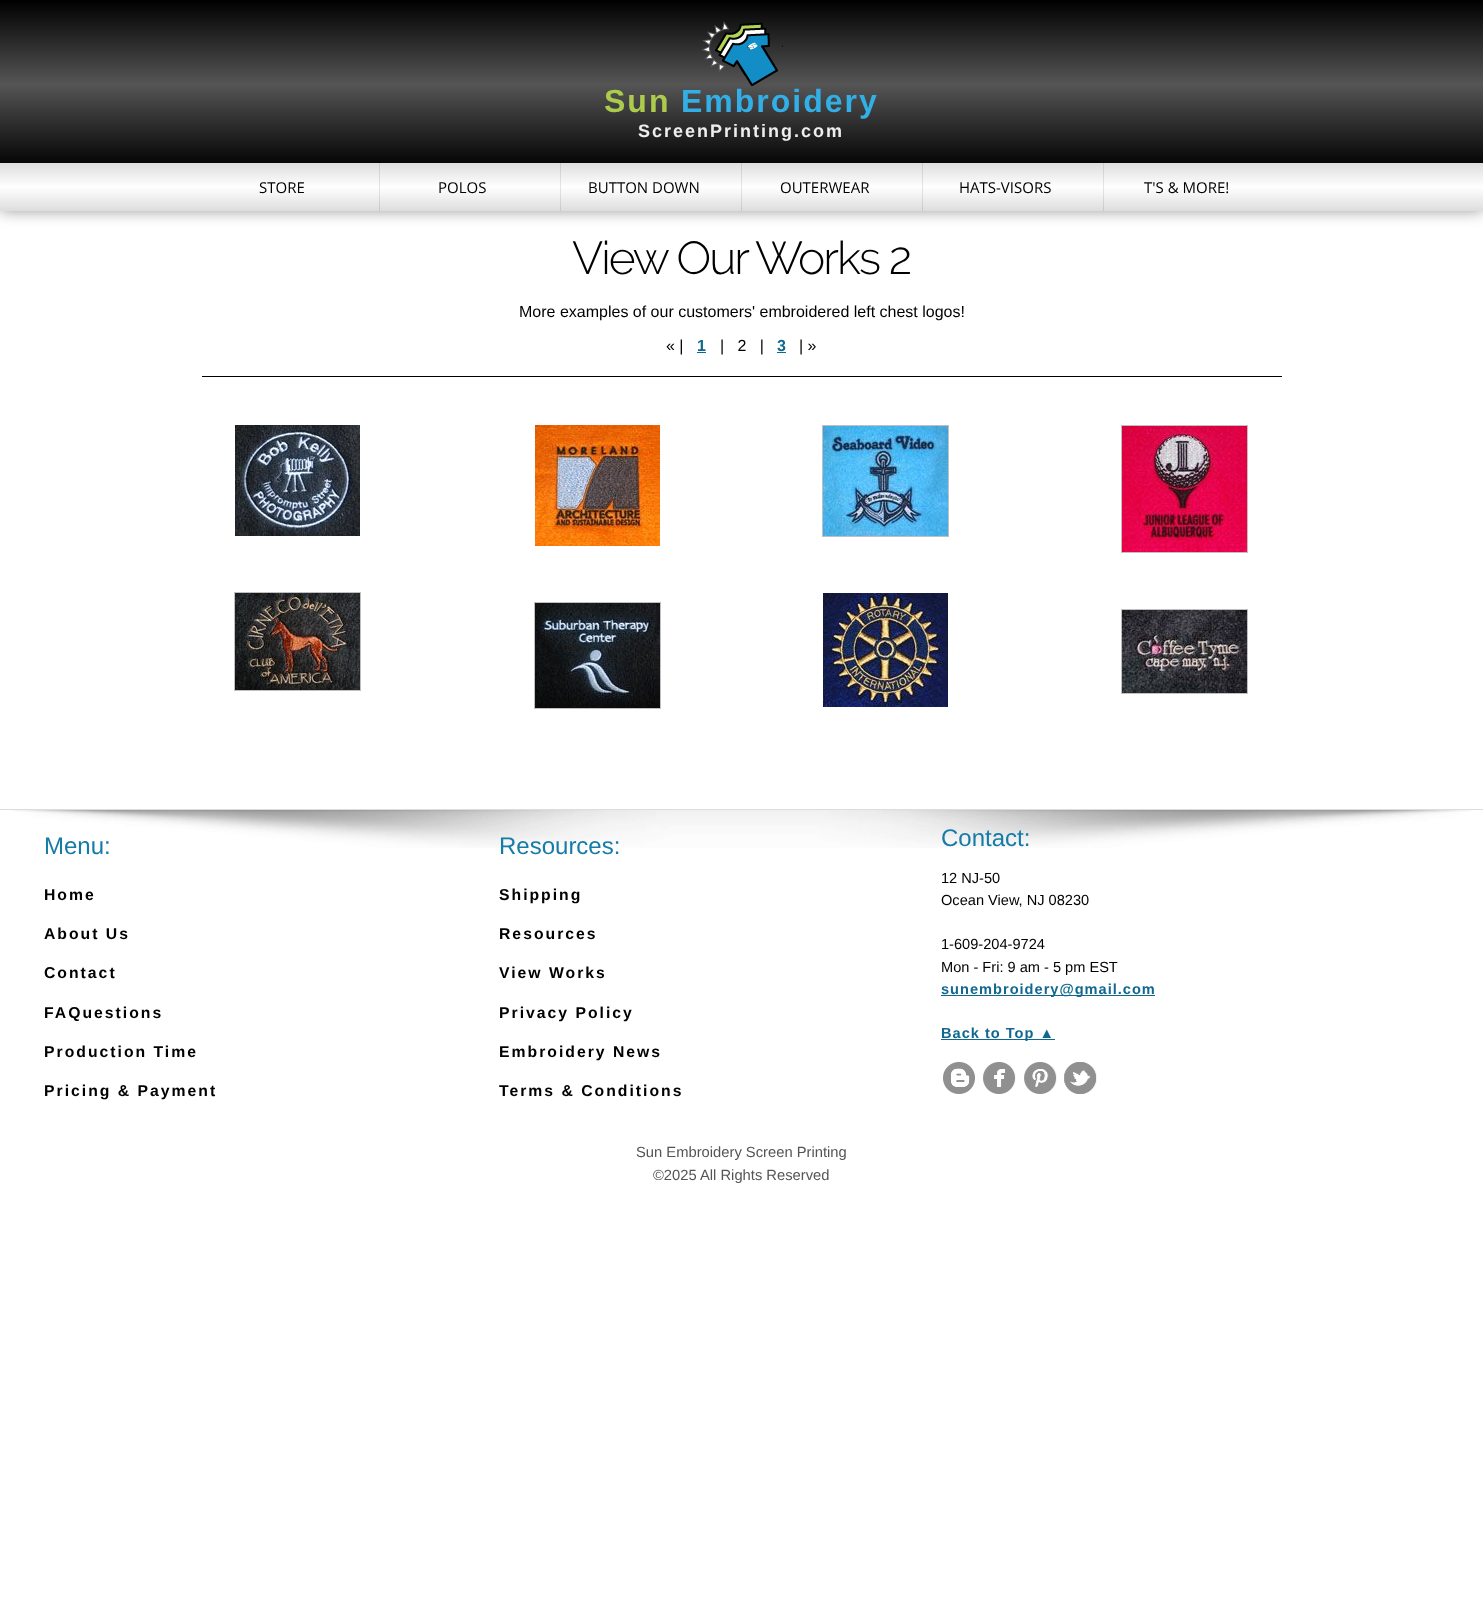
<!DOCTYPE html>
<meta charset="utf-8">
<style>body { margin: 0 } canvas { display: block }</style>
<canvas id="canvas" width="1483" height="1620"></canvas>
<script type="module">
  const canvas = document.getElementById("canvas");
  const ctx = canvas.getContext("2d");
  ctx.miterLimit = 4;
  ctx.fontKerning = "normal";
  async function loadImage(src) {
    const img = new Image();
    img.src = src;
    await img.decode();
    return img;
  }
  let gradient;

  ctx.fillStyle = "#ffffff";
  ctx.fillRect(0, 0, 1483, 1620);
  ctx.fillStyle = "rgba(0, 0, 0, 0.4)";
  ctx.filter = "blur(7.5px)";
  ctx.beginPath();
  ctx.rect(0, 0, 1483, 211);
  ctx.fill();
  ctx.filter = "none";
  gradient = ctx.createLinearGradient(742, 0, 742, 211);
  gradient.addColorStop(0, "#000000");
  gradient.addColorStop(0.4, "#555555");
  gradient.addColorStop(0.8, "#000000");
  ctx.fillStyle = gradient;
  ctx.fillRect(0, 0, 1483, 163);
  ctx.drawImage(await loadImage("img1.png"), 701, 21, 82, 65);
  ctx.letterSpacing = "2px";
  ctx.font = "bold 32px Liberation Sans";
  ctx.fillStyle = "#accb4d";
  ctx.fillText("Sun", 604, 112);
  ctx.fillStyle = "#32afe6";
  ctx.fillText("Embroidery", 681, 112);
  ctx.font = "bold 18px Liberation Sans";
  ctx.fillStyle = "#eeeeee";
  ctx.fillText("ScreenPrinting.com", 638, 137);
  gradient = ctx.createLinearGradient(742, 163, 742, 211);
  gradient.addColorStop(0, "#dddddd");
  gradient.addColorStop(0.5, "#ffffff");
  gradient.addColorStop(1, "#dddddd");
  ctx.fillStyle = gradient;
  ctx.fillRect(0, 163, 1483, 48);
  gradient = ctx.createLinearGradient(742, 163, 742, 211);
  gradient.addColorStop(0, "#c7c7c7");
  gradient.addColorStop(0.5, "#e6e6e6");
  gradient.addColorStop(1, "#c7c7c7");
  ctx.fillStyle = gradient;
  ctx.fillRect(1103, 163, 1, 48);
  ctx.fillRect(922, 163, 1, 48);
  ctx.fillRect(741, 163, 1, 48);
  ctx.fillRect(560, 163, 1, 48);
  ctx.fillRect(379, 163, 1, 48);
  ctx.letterSpacing = "0px";
  ctx.font = "15px Open Sans";
  ctx.fillStyle = "#000000";
  ctx.fillText("STORE", 259, 193);
  ctx.fillText("POLOS", 438, 193);
  ctx.fillText("BUTTON DOWN", 588, 193);
  ctx.fillText("OUTERWEAR", 780, 193);
  ctx.fillText("HATS-VISORS", 959, 193);
  ctx.fillText("T'S & MORE!", 1144, 193);
  ctx.letterSpacing = "-2px";
  ctx.font = "300 46px Raleway";
  ctx.fillText("View Our Works 2", 572, 274);
  ctx.letterSpacing = "0px";
  ctx.font = "16px Liberation Sans";
  ctx.fillText("More examples of our customers' embroidered left chest logos!", 519, 317);
  ctx.fillText("« |", 666, 351);
  ctx.font = "bold 16px Liberation Sans";
  ctx.fillStyle = "#11688f";
  ctx.fillText("1", 697, 351);
  ctx.fillRect(697, 352, 9, 1);
  ctx.font = "16px Liberation Sans";
  ctx.fillStyle = "#000000";
  ctx.fillText("|   2   |", 720, 351);
  ctx.font = "bold 16px Liberation Sans";
  ctx.fillStyle = "#11688f";
  ctx.fillText("3", 777, 351);
  ctx.fillRect(777, 352, 9, 1);
  ctx.font = "16px Liberation Sans";
  ctx.fillStyle = "#000000";
  ctx.fillText("| »", 799, 351);
  ctx.fillRect(202, 376, 1080, 1);
  ctx.drawImage(await loadImage("img2.png"), 235, 425, 125, 111);
  ctx.strokeStyle = "#c0c0c0";
  ctx.strokeRect(234.5, 592.5, 126, 98);
  ctx.drawImage(await loadImage("img3.png"), 235, 593, 125, 97);
  ctx.drawImage(await loadImage("img4.png"), 535, 425, 125, 121);
  ctx.strokeRect(534.5, 602.5, 126, 106);
  ctx.drawImage(await loadImage("img5.png"), 535, 603, 125, 105);
  ctx.strokeRect(822.5, 425.5, 126, 111);
  ctx.drawImage(await loadImage("img6.png"), 823, 426, 125, 110);
  ctx.drawImage(await loadImage("img7.png"), 823, 593, 125, 114);
  ctx.strokeRect(1121.5, 425.5, 126, 127);
  ctx.drawImage(await loadImage("img8.png"), 1122, 426, 125, 126);
  ctx.strokeRect(1121.5, 609.5, 126, 84);
  ctx.drawImage(await loadImage("img9.png"), 1122, 610, 125, 83);
  ctx.drawImage(await loadImage("img10.png"), 11, 810, 1462, 38);
  ctx.fillStyle = "#dddddd";
  ctx.fillRect(0, 809, 1483, 1);
  ctx.font = "24px Liberation Sans";
  ctx.fillStyle = "#157ba7";
  ctx.fillText("Menu:", 44, 854);
  ctx.letterSpacing = "2px";
  ctx.font = "bold 15.75px Liberation Sans";
  ctx.fillStyle = "#000000";
  ctx.fillText("Home", 44, 900);
  ctx.fillText("About Us", 44, 939);
  ctx.fillText("Contact", 44, 978);
  ctx.fillText("FAQuestions", 44, 1018);
  ctx.fillText("Production Time", 44, 1057);
  ctx.fillText("Pricing & Payment", 44, 1096);
  ctx.letterSpacing = "0px";
  ctx.font = "24px Liberation Sans";
  ctx.fillStyle = "#157ba7";
  ctx.fillText("Resources:", 499, 854);
  ctx.letterSpacing = "2px";
  ctx.font = "bold 15.75px Liberation Sans";
  ctx.fillStyle = "#000000";
  ctx.fillText("Shipping", 499, 900);
  ctx.fillText("Resources", 499, 939);
  ctx.fillText("View Works", 499, 978);
  ctx.fillText("Privacy Policy", 499, 1018);
  ctx.fillText("Embroidery News", 499, 1057);
  ctx.fillText("Terms & Conditions", 499, 1096);
  ctx.letterSpacing = "0px";
  ctx.font = "24px Liberation Sans";
  ctx.fillStyle = "#157ba7";
  ctx.fillText("Contact:", 941, 846);
  ctx.font = "14.6px Liberation Sans";
  ctx.fillStyle = "#000000";
  ctx.fillText("12 NJ-50", 941, 883);
  ctx.fillText("Ocean View, NJ 08230", 941, 905);
  ctx.fillText("1-609-204-9724", 941, 949);
  ctx.fillText("Mon - Fri: 9 am - 5 pm EST", 941, 972);
  ctx.fillStyle = "#11688f";
  ctx.fillRect(941, 995, 214, 1);
  ctx.letterSpacing = "1px";
  ctx.font = "bold 14.6px Liberation Sans";
  ctx.fillText("sunembroidery@gmail.com", 941, 994);
  ctx.fillRect(941, 1039, 114, 1);
  ctx.fillText("Back to Top ▲", 941, 1038);
  ctx.drawImage(await loadImage("img11.png"), 943, 1062, 32, 32);
  ctx.drawImage(await loadImage("img12.png"), 983, 1062, 33, 32);
  ctx.drawImage(await loadImage("img13.png"), 1024, 1062, 33, 32);
  ctx.drawImage(await loadImage("img14.png"), 1064, 1062, 33, 32);
  ctx.letterSpacing = "0px";
  ctx.font = "14.75px Liberation Sans";
  ctx.fillStyle = "#555555";
  ctx.fillText("Sun Embroidery Screen Printing", 636, 1157);
  ctx.fillText("©2025 All Rights Reserved", 653, 1180);
</script>
